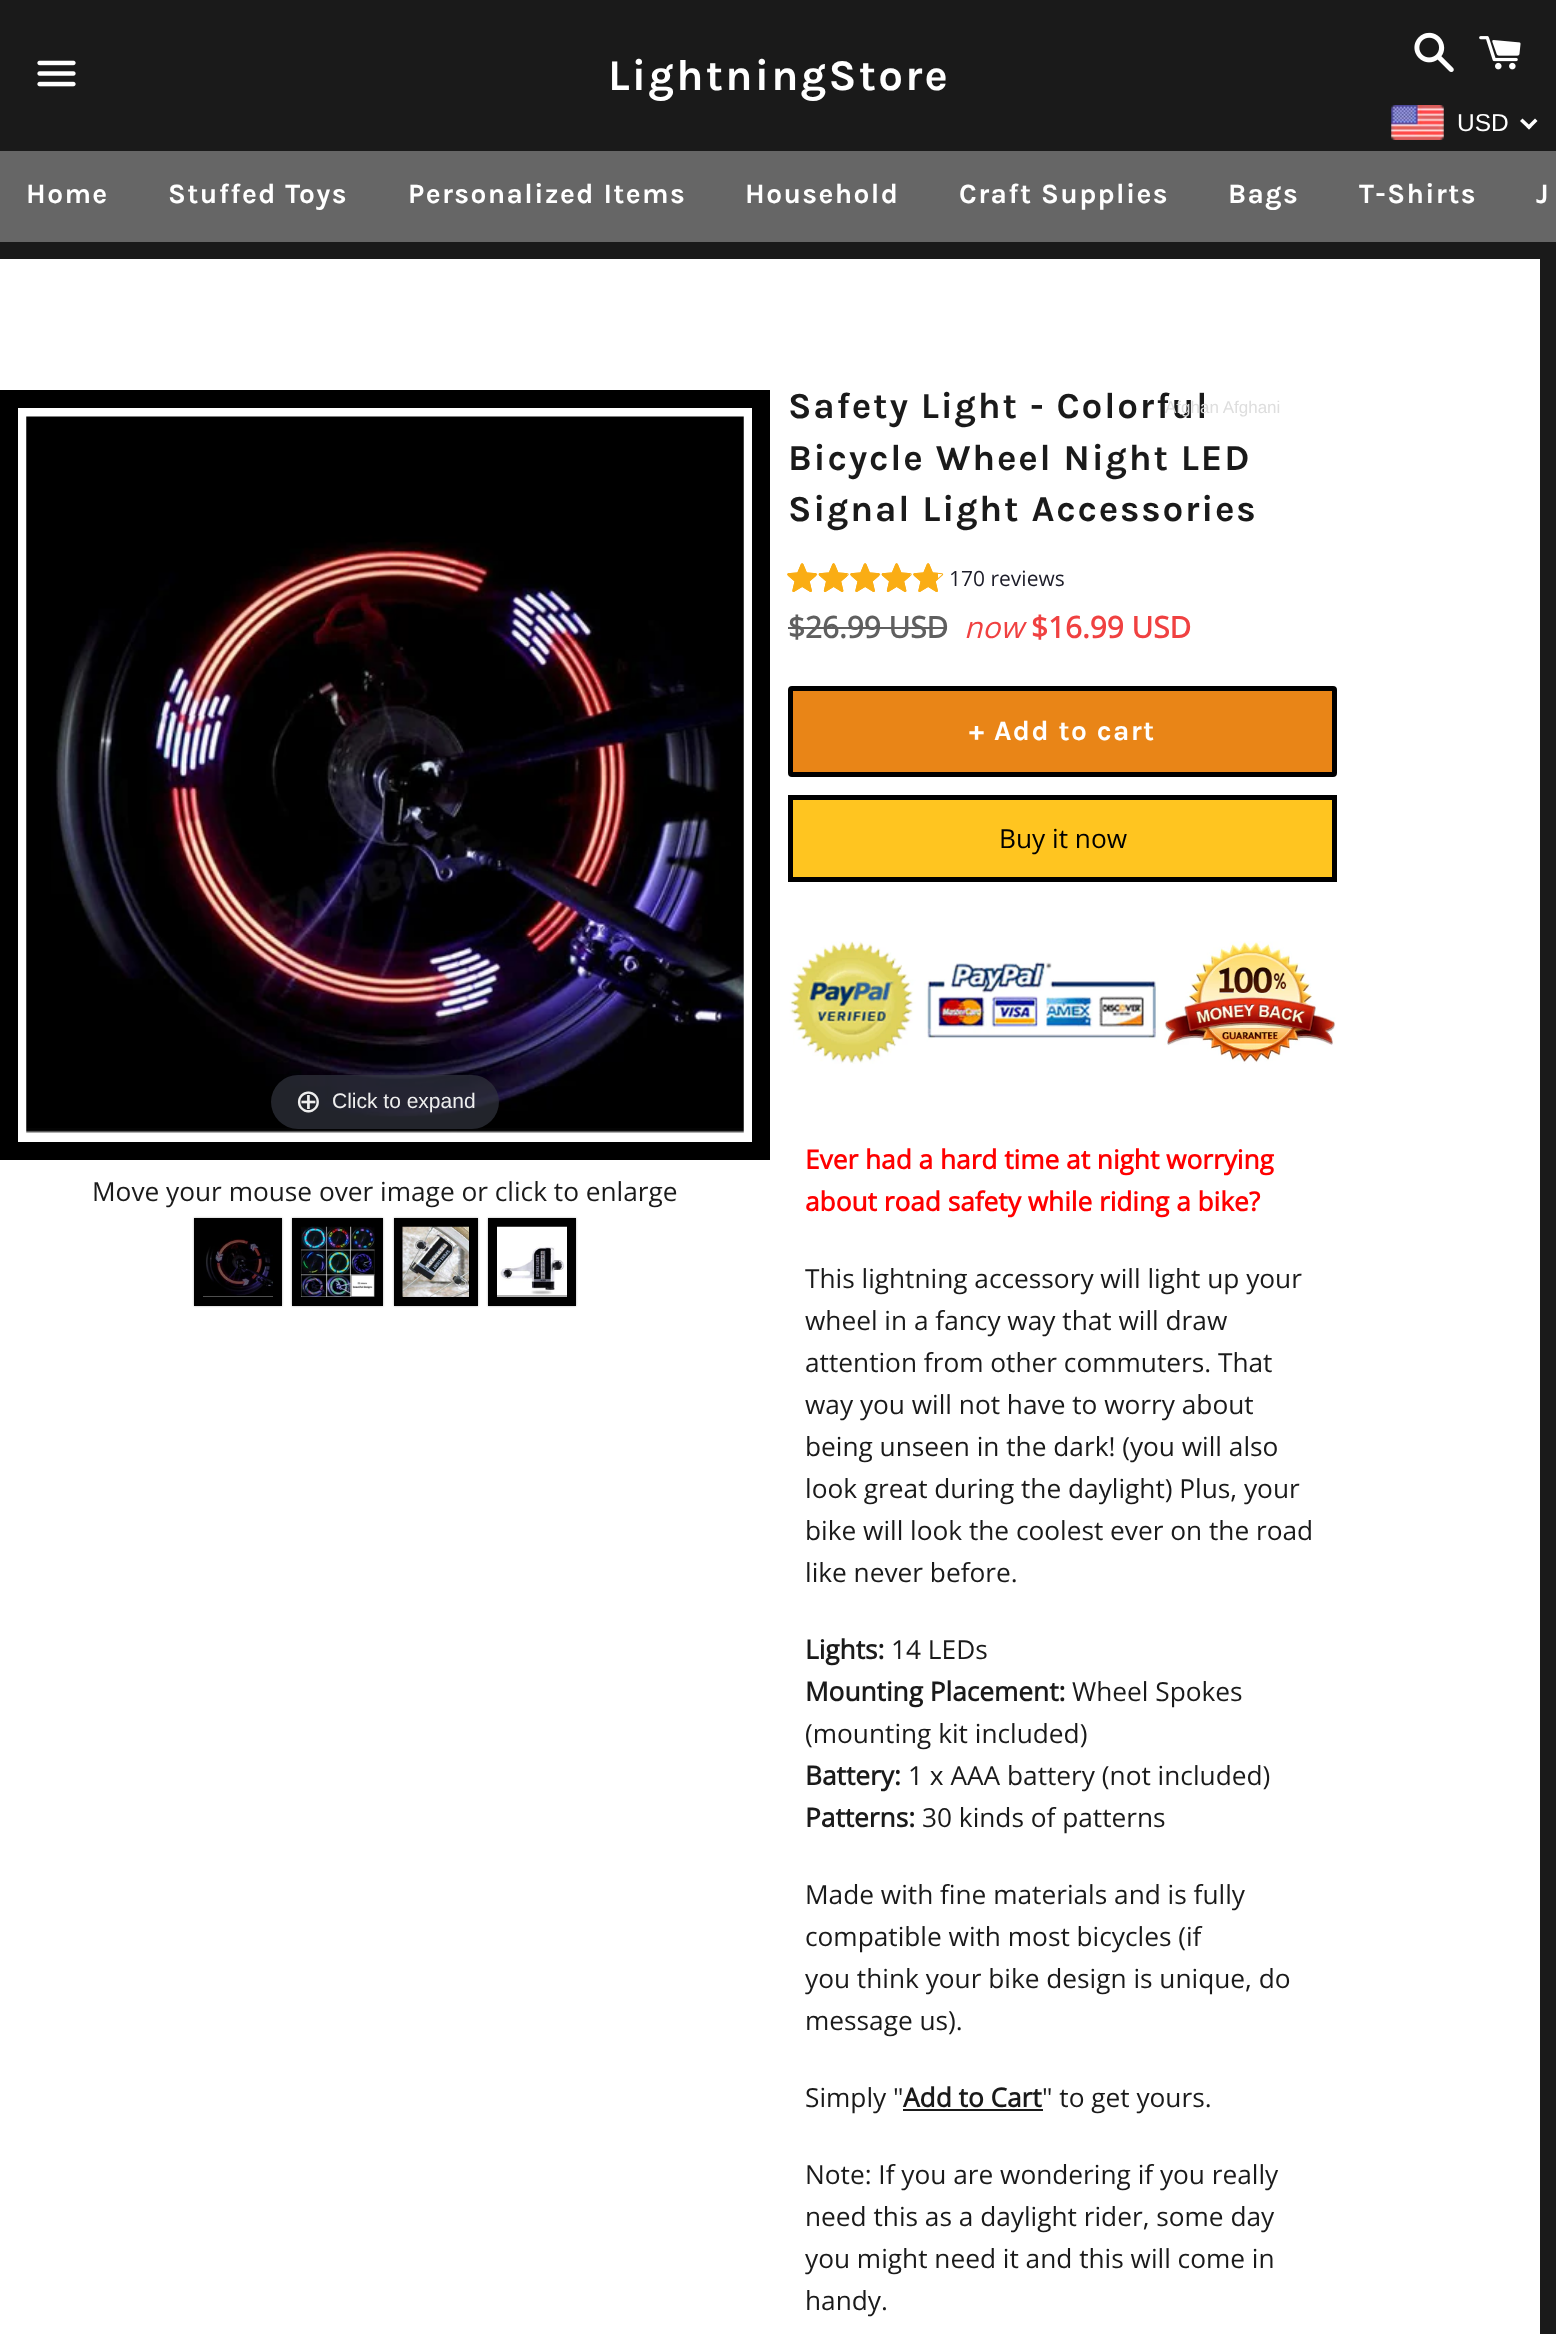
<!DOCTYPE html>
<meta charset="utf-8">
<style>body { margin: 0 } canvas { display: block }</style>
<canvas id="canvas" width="1556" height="2334"></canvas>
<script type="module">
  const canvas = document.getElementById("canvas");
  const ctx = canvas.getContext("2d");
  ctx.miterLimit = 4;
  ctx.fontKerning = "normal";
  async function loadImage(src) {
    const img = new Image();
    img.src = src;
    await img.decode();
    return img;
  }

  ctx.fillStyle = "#ffffff";
  ctx.fillRect(0, 0, 1556, 2334);
  ctx.fillStyle = "#1a1a1a";
  ctx.fillRect(0, 0, 1556, 151);
  ctx.drawImage(await loadImage("img1.png"), 37, 60, 39, 27);
  ctx.letterSpacing = "2.25px";
  ctx.font = "bold 43.75px Karla";
  ctx.fillStyle = "#ffffff";
  ctx.fillText("LightningStore", 608, 90);
  ctx.drawImage(await loadImage("img2.png"), 1414, 32, 40, 40);
  ctx.drawImage(await loadImage("img3.png"), 1479, 36, 42, 34);
  ctx.drawImage(await loadImage("img4.png"), 1391, 105, 53, 35);
  ctx.letterSpacing = "0px";
  ctx.font = "24.5px Liberation Sans";
  ctx.fillText("USD", 1457, 131);
  ctx.beginPath();
  ctx.moveTo(1535, 118.5);
  ctx.lineTo(1537.5, 121);
  ctx.lineTo(1529, 129.5);
  ctx.lineTo(1526.5, 127);
  ctx.closePath();
  ctx.fill();
  ctx.beginPath();
  ctx.moveTo(1522.5, 118.5);
  ctx.lineTo(1531.5, 127);
  ctx.lineTo(1529, 129.5);
  ctx.lineTo(1520, 121);
  ctx.closePath();
  ctx.fill();
  ctx.letterSpacing = "1.8px";
  ctx.font = "bold 36.75px Karla";
  ctx.fillStyle = "#1a1a1a";
  ctx.fillText("Safety Light - Colorful", 788, 418);
  ctx.letterSpacing = "0px";
  ctx.font = "17px Liberation Sans";
  ctx.fillStyle = "#dedede";
  ctx.fillText("Afghan Afghani", 1165, 413);
  ctx.fillStyle = "#1a1a1a";
  ctx.fillRect(0, 242, 1556, 17);
  ctx.fillStyle = "#666666";
  ctx.fillRect(0, 151, 1556, 91);
  ctx.letterSpacing = "1.4px";
  ctx.font = "bold 28px Karla";
  ctx.fillStyle = "#ffffff";
  ctx.fillText("Home", 26, 203);
  ctx.fillText("Stuffed Toys", 168, 203);
  ctx.fillText("Personalized Items", 408, 203);
  ctx.fillText("Household", 745, 203);
  ctx.fillText("Craft Supplies", 959, 203);
  ctx.fillText("Bags", 1228, 203);
  ctx.fillText("T-Shirts", 1359, 203);
  ctx.fillText("J", 1536, 203);
  ctx.fillStyle = "#1a1a1a";
  ctx.fillRect(1540, 259, 16, 2075);
  ctx.strokeStyle = "#000000";
  ctx.lineWidth = 18;
  ctx.strokeRect(9, 399, 752, 752);
  ctx.drawImage(await loadImage("img5.png"), 26, 416, 718, 718);
  ctx.fillStyle = "rgba(49, 51, 61, 0.7)";
  ctx.beginPath();
  ctx.roundRect(271, 1075, 228, 54, 27);
  ctx.fill();
  ctx.letterSpacing = "0px";
  ctx.font = "32px DejaVu Sans";
  ctx.fillStyle = "#eeeeee";
  ctx.fillText("⊕", 295, 1112);
  ctx.font = "21px Liberation Sans";
  ctx.fillText("Click to expand", 332, 1108);
  ctx.font = "26.25px Open Sans";
  ctx.fillStyle = "#1a1a1a";
  ctx.fillText("Move your mouse over image or click to enlarge", 92, 1201);
  ctx.fillStyle = "rgba(0, 0, 0, 0.3)";
  ctx.filter = "blur(1px)";
  ctx.beginPath();
  ctx.rect(194, 1218, 88, 88);
  ctx.fill();
  ctx.filter = "none";
  ctx.lineWidth = 9;
  ctx.strokeRect(198.5, 1222.5, 79, 79);
  ctx.drawImage(await loadImage("img6.png"), 203, 1227, 70, 70);
  ctx.filter = "blur(1px)";
  ctx.beginPath();
  ctx.rect(292, 1218, 91, 88);
  ctx.fill();
  ctx.filter = "none";
  ctx.strokeRect(296.5, 1222.5, 82, 79);
  ctx.drawImage(await loadImage("img7.png"), 301, 1226, 74, 71);
  ctx.filter = "blur(1px)";
  ctx.beginPath();
  ctx.rect(394, 1218, 84, 88);
  ctx.fill();
  ctx.filter = "none";
  ctx.strokeRect(398.5, 1222.5, 75, 79);
  ctx.drawImage(await loadImage("img8.png"), 402, 1226, 67, 71);
  ctx.filter = "blur(1px)";
  ctx.beginPath();
  ctx.rect(488, 1218, 88, 88);
  ctx.fill();
  ctx.filter = "none";
  ctx.strokeRect(492.5, 1222.5, 79, 79);
  ctx.drawImage(await loadImage("img9.png"), 497, 1226, 70, 69);
  ctx.letterSpacing = "1.8px";
  ctx.font = "bold 36.75px Karla";
  ctx.fillStyle = "#1a1a1a";
  ctx.fillText("Bicycle Wheel Night LED", 788, 470);
  ctx.fillText("Signal Light Accessories", 788, 521);
  ctx.drawImage(await loadImage("img10.png"), 787, 563, 31, 29);
  ctx.drawImage(await loadImage("img11.png"), 788, 564, 28, 28);
  ctx.drawImage(await loadImage("img12.png"), 818, 563, 31, 29);
  ctx.drawImage(await loadImage("img13.png"), 819, 564, 28, 28);
  ctx.drawImage(await loadImage("img10.png"), 850, 563, 31, 29);
  ctx.drawImage(await loadImage("img11.png"), 851, 564, 28, 28);
  ctx.drawImage(await loadImage("img12.png"), 881, 563, 31, 29);
  ctx.drawImage(await loadImage("img13.png"), 882, 564, 28, 28);
  ctx.drawImage(await loadImage("img10.png"), 913, 563, 31, 29);
  ctx.drawImage(await loadImage("img14.png"), 914, 564, 24, 28);
  ctx.letterSpacing = "0px";
  ctx.font = "21px Open Sans";
  ctx.fillStyle = "#1c1c28";
  ctx.fillText("170 reviews", 949, 586);
  ctx.font = "bold 29.75px Open Sans";
  ctx.fillStyle = "#5f5f5f";
  ctx.fillText("$26.99 USD", 788, 638);
  ctx.fillRect(788, 627, 159, 2);
  ctx.font = "italic 29.75px Open Sans";
  ctx.fillStyle = "#f04141";
  ctx.fillText("now", 964, 638);
  ctx.font = "bold 29.75px Open Sans";
  ctx.fillText("$16.99 USD", 1031, 638);
  ctx.fillStyle = "#e98517";
  ctx.beginPath();
  ctx.roundRect(790.5, 688.5, 544, 86, 1.5);
  ctx.fill();
  ctx.lineWidth = 5;
  ctx.stroke();
  ctx.letterSpacing = "1.4px";
  ctx.font = "bold 28px Karla";
  ctx.fillStyle = "#ffffff";
  ctx.fillText("+ Add to cart", 969, 740);
  ctx.fillStyle = "#ffc520";
  ctx.beginPath();
  ctx.rect(790.5, 797.5, 544, 82);
  ctx.fill();
  ctx.stroke();
  ctx.letterSpacing = "0px";
  ctx.font = "26.25px Open Sans";
  ctx.fillStyle = "#000000";
  ctx.fillText("Buy it now", 999, 848);
  ctx.drawImage(await loadImage("img15.png"), 789, 941, 547, 123);
  ctx.font = "bold 26.25px Open Sans";
  ctx.fillStyle = "#ff0000";
  ctx.fillText("Ever had a hard time at night worrying", 805, 1169);
  ctx.fillText("about road safety while riding a bike?", 805, 1211);
  ctx.font = "26.25px Open Sans";
  ctx.fillStyle = "#1a1a1a";
  ctx.fillText("This lightning accessory will light up your", 805, 1288);
  ctx.fillText("wheel in a fancy way that will draw", 805, 1330);
  ctx.fillText("attention from other commuters. That", 805, 1372);
  ctx.fillText("way you will not have to worry about", 805, 1414);
  ctx.fillText("being unseen in the dark! (you will also", 805, 1456);
  ctx.fillText("look great during the daylight) Plus, your", 805, 1498);
  ctx.fillText("bike will look the coolest ever on the road", 805, 1540);
  ctx.fillText("like never before.", 805, 1582);
  ctx.font = "bold 26.25px Open Sans";
  ctx.fillText("Lights:", 805, 1659);
  ctx.font = "26.25px Open Sans";
  ctx.fillText("14 LEDs", 891, 1659);
  ctx.font = "bold 26.25px Open Sans";
  ctx.fillText("Mounting Placement:", 805, 1701);
  ctx.font = "26.25px Open Sans";
  ctx.fillText("Wheel Spokes", 1072, 1701);
  ctx.fillText("(mounting kit included)", 805, 1743);
  ctx.font = "bold 26.25px Open Sans";
  ctx.fillText("Battery:", 805, 1785);
  ctx.font = "26.25px Open Sans";
  ctx.fillText("1 x AAA battery (not included)", 908, 1785);
  ctx.font = "bold 26.25px Open Sans";
  ctx.fillText("Patterns:", 805, 1827);
  ctx.font = "26.25px Open Sans";
  ctx.fillText("30 kinds of patterns", 922, 1827);
  ctx.fillText("Made with fine materials and is fully", 805, 1904);
  ctx.fillText("compatible with most bicycles (if", 805, 1946);
  ctx.fillText("you think your bike design is unique, do", 805, 1988);
  ctx.fillText("message us).", 805, 2030);
  ctx.fillText("Simply \"", 805, 2107);
  ctx.font = "bold 26.25px Open Sans";
  ctx.fillText("Add to Cart", 903, 2107);
  ctx.font = "26.25px Open Sans";
  ctx.fillText("\" to get yours.", 1042, 2107);
  ctx.fillRect(903, 2109, 140, 2);
  ctx.fillText("Note: If you are wondering if you really", 805, 2184);
  ctx.fillText("need this as a daylight rider, some day", 805, 2226);
  ctx.fillText("you might need it and this will come in", 805, 2268);
  ctx.fillText("handy.", 805, 2310);
</script>
